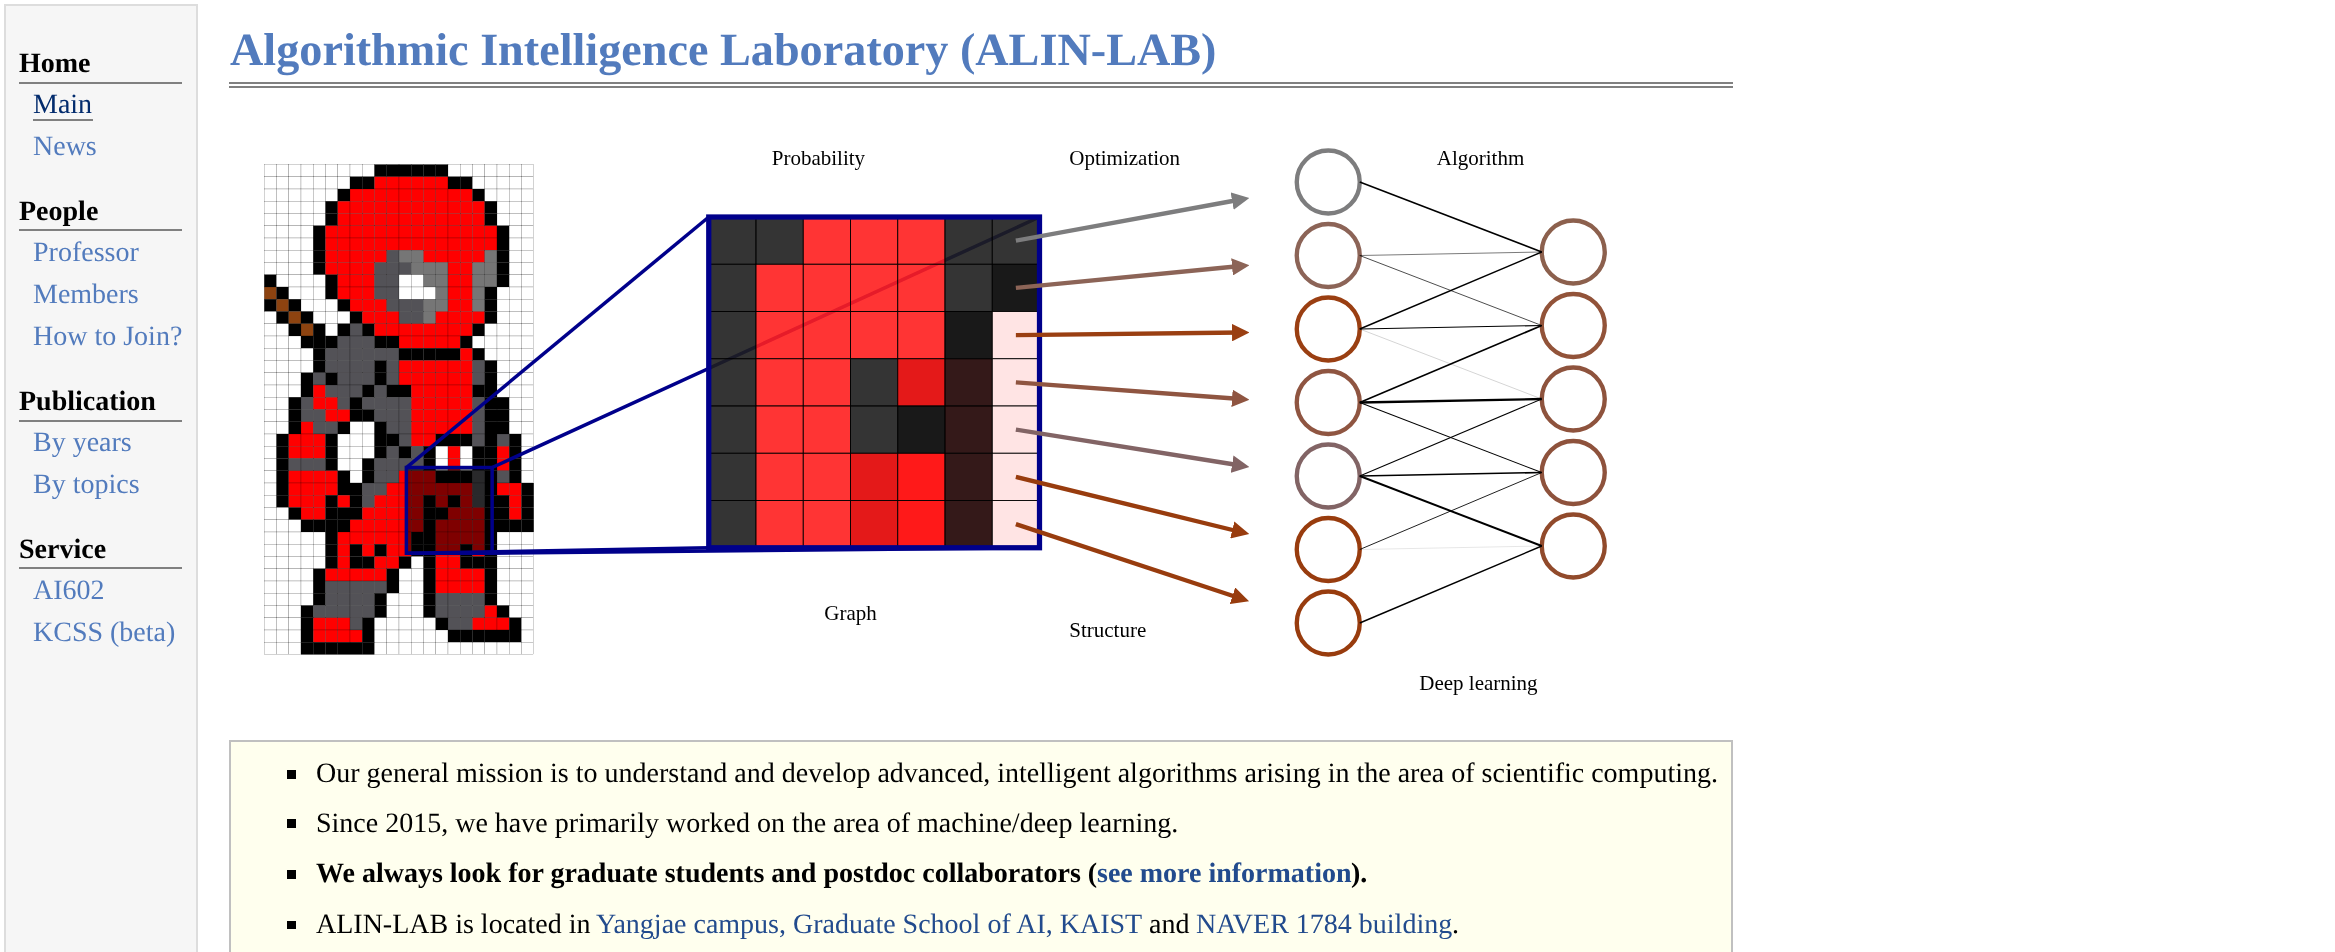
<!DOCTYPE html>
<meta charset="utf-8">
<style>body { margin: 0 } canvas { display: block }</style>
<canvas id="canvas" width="2335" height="952"></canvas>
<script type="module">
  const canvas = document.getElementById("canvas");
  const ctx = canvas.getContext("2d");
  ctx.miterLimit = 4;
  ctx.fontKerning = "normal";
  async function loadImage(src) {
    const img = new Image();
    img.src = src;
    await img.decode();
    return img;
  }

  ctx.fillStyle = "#ffffff";
  ctx.fillRect(0, 0, 2335, 952);
  ctx.fillStyle = "#f6f6f6";
  ctx.beginPath();
  ctx.rect(5, 5, 192, 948);
  ctx.fill();
  ctx.strokeStyle = "#dddddd";
  ctx.lineWidth = 2;
  ctx.stroke();
  ctx.fillStyle = "#808080";
  ctx.fillRect(19, 82, 163, 2);
  ctx.font = "bold 28px Liberation Serif";
  ctx.fillStyle = "#000000";
  ctx.fillText("Home", 19, 72);
  ctx.font = "28px Liberation Serif";
  ctx.fillStyle = "#022b6d";
  ctx.fillText("Main", 33, 113);
  ctx.fillStyle = "#808080";
  ctx.fillRect(33, 119, 60, 2);
  ctx.fillStyle = "#527bbd";
  ctx.fillText("News", 33, 155);
  ctx.fillStyle = "#808080";
  ctx.fillRect(19, 229, 163, 2);
  ctx.font = "bold 28px Liberation Serif";
  ctx.fillStyle = "#000000";
  ctx.fillText("People", 19, 220);
  ctx.font = "28px Liberation Serif";
  ctx.fillStyle = "#527bbd";
  ctx.fillText("Professor", 33, 261);
  ctx.fillText("Members", 33, 303);
  ctx.fillText("How to Join?", 33, 345);
  ctx.fillStyle = "#808080";
  ctx.fillRect(19, 420, 163, 2);
  ctx.font = "bold 28px Liberation Serif";
  ctx.fillStyle = "#000000";
  ctx.fillText("Publication", 19, 410);
  ctx.font = "28px Liberation Serif";
  ctx.fillStyle = "#527bbd";
  ctx.fillText("By years", 33, 451);
  ctx.fillText("By topics", 33, 493);
  ctx.fillStyle = "#808080";
  ctx.fillRect(19, 567, 163, 2);
  ctx.font = "bold 28px Liberation Serif";
  ctx.fillStyle = "#000000";
  ctx.fillText("Service", 19, 558);
  ctx.font = "28px Liberation Serif";
  ctx.fillStyle = "#527bbd";
  ctx.fillText("AI602", 33, 599);
  ctx.fillText("KCSS (beta)", 33, 641);
  ctx.fillStyle = "#808080";
  ctx.fillRect(229, 82, 1504, 2);
  ctx.fillRect(229, 86, 1504, 2);
  ctx.font = "bold 46.2px Liberation Serif";
  ctx.fillStyle = "#527bbd";
  ctx.fillText("Algorithmic Intelligence Laboratory (ALIN-LAB)", 230, 65);
  ctx.drawImage(await loadImage("img1.png"), 264, 148, 1343, 547);
  ctx.fillStyle = "#ffffee";
  ctx.beginPath();
  ctx.rect(230, 741, 1502, 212);
  ctx.fill();
  ctx.strokeStyle = "#c0c0c0";
  ctx.stroke();
  ctx.fillStyle = "#000000";
  ctx.fillRect(287, 770, 9, 9);
  ctx.font = "28px Liberation Serif";
  ctx.fillText("Our general mission is to understand and develop advanced, intelligent algorithms arising in the area of scientific computing.", 316, 782);
  ctx.fillRect(287, 819, 9, 9);
  ctx.fillText("Since 2015, we have primarily worked on the area of machine/deep learning.", 316, 832);
  ctx.fillRect(287, 870, 9, 9);
  ctx.font = "bold 28px Liberation Serif";
  ctx.fillText("We always look for graduate students and postdoc collaborators (", 316, 882);
  ctx.fillStyle = "#224b8d";
  ctx.fillText("see more information", 1097, 882);
  ctx.fillStyle = "#000000";
  ctx.fillText(").", 1351, 882);
  ctx.fillRect(287, 921, 9, 8);
  ctx.font = "28px Liberation Serif";
  ctx.fillText("ALIN-LAB is located in", 316, 933);
  ctx.fillStyle = "#224b8d";
  ctx.fillText("Yangjae campus, Graduate School of AI, KAIST", 596, 933);
  ctx.fillStyle = "#000000";
  ctx.fillText("and", 1149, 933);
  ctx.fillStyle = "#224b8d";
  ctx.fillText("NAVER 1784 building", 1196, 933);
  ctx.fillStyle = "#000000";
  ctx.fillText(".", 1452, 933);
</script>
